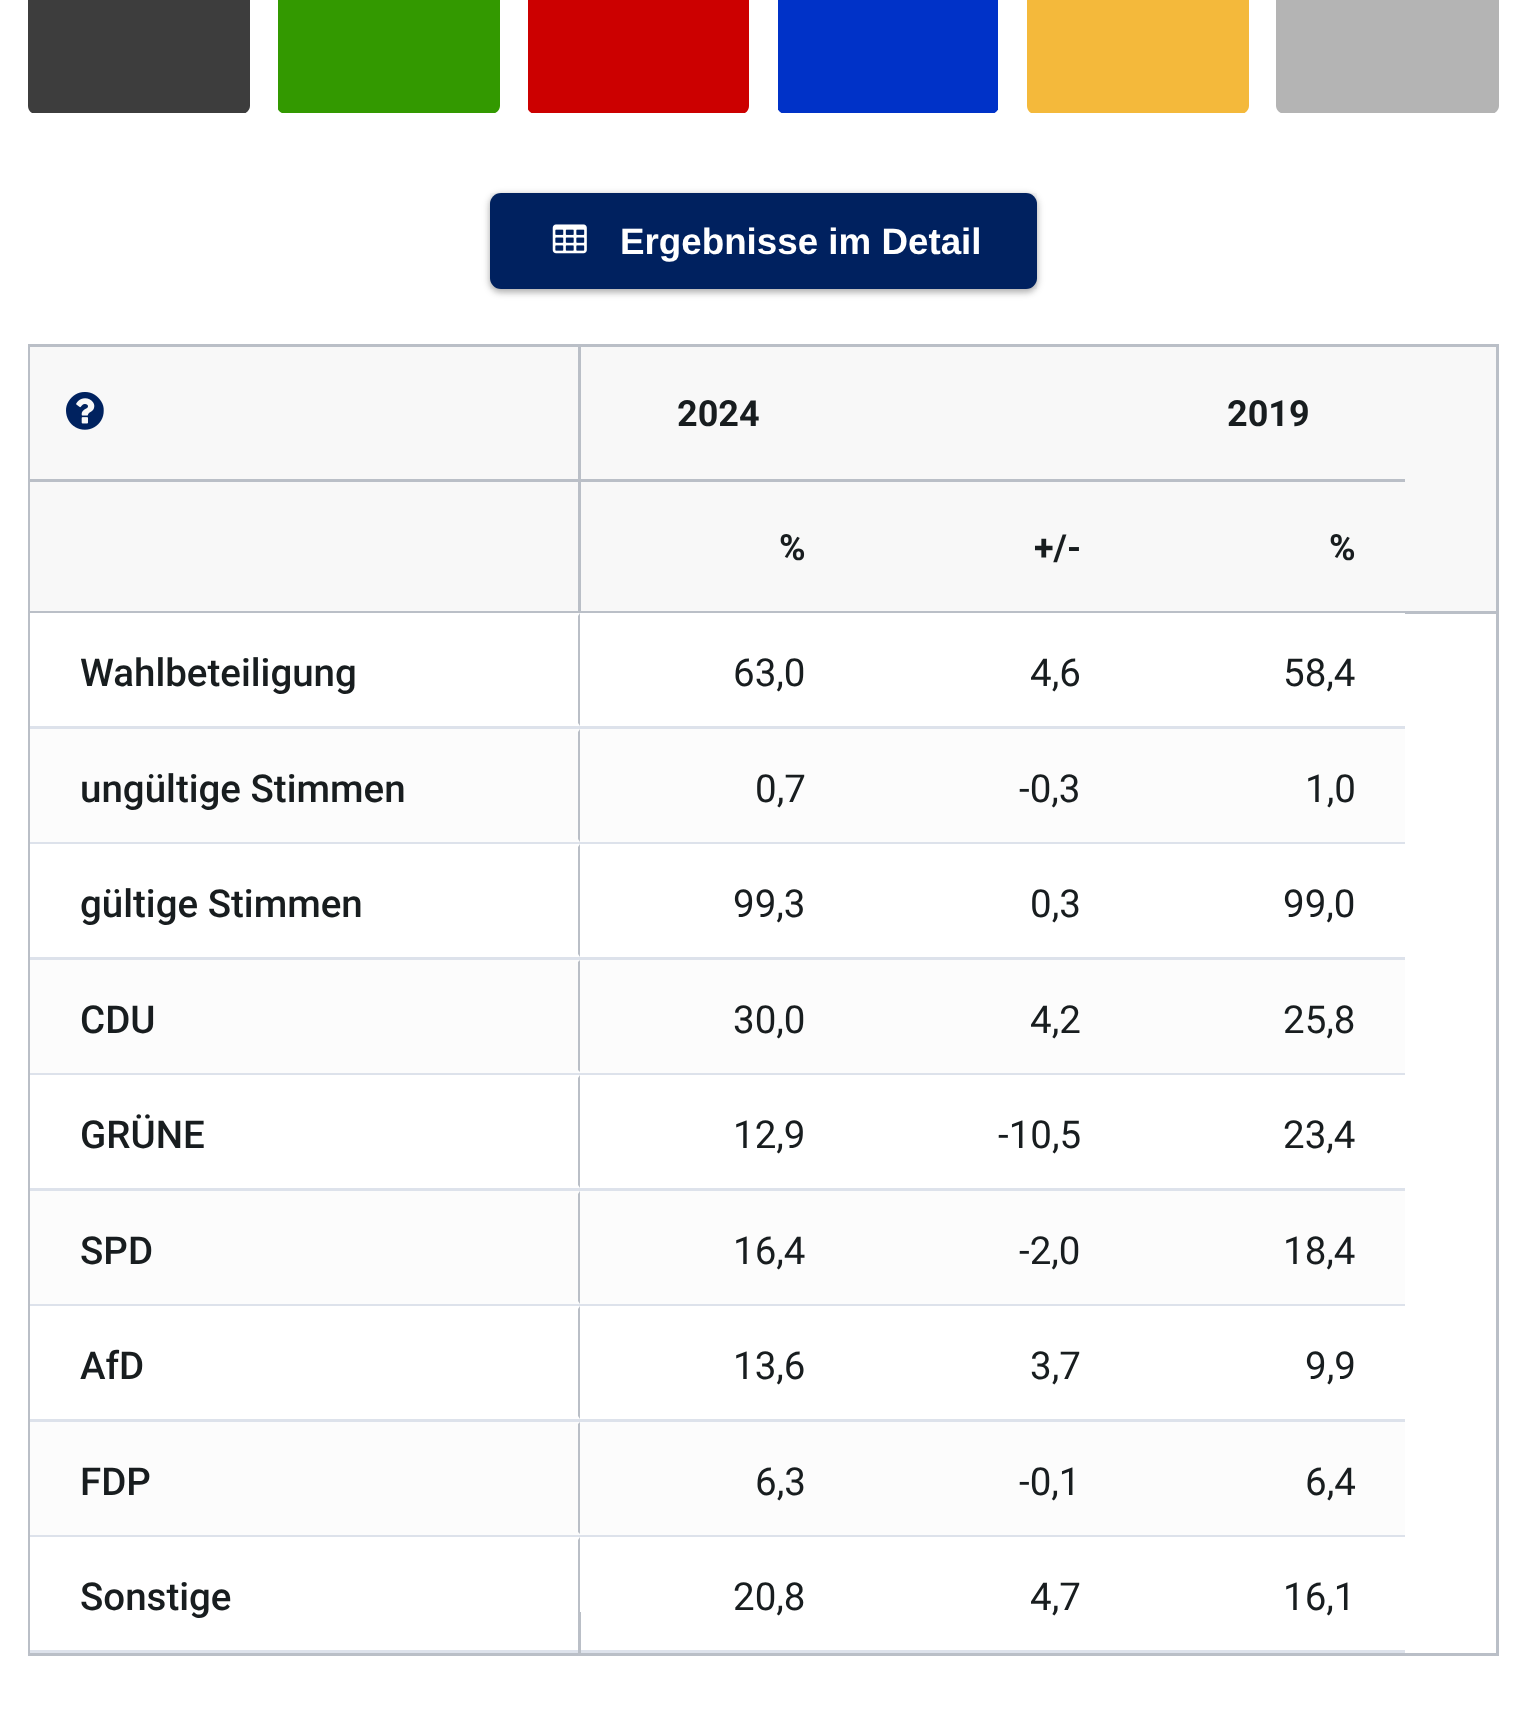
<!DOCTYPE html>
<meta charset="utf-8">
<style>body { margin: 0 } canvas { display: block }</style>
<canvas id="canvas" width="1525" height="1710"></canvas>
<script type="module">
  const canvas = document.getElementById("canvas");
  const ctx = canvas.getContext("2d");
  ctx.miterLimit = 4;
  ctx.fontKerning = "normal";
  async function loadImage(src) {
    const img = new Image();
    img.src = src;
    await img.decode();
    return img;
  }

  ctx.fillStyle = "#ffffff";
  ctx.fillRect(0, 0, 1525, 1710);
  ctx.save();
  ctx.beginPath();
  ctx.rect(28, 0, 222, 113);
  ctx.clip();
  ctx.fillStyle = "#3d3d3d";
  ctx.beginPath();
  ctx.moveTo(242, 114);
  ctx.lineTo(36, 114);
  ctx.bezierCurveTo(31, 114, 28, 110, 28, 106);
  ctx.lineTo(28, -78);
  ctx.lineTo(250, -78);
  ctx.lineTo(250, 106);
  ctx.bezierCurveTo(250, 110, 246, 114, 242, 114);
  ctx.closePath();
  ctx.fill();
  ctx.restore();
  ctx.save();
  ctx.beginPath();
  ctx.rect(278, 0, 223, 113);
  ctx.clip();
  ctx.fillStyle = "#339900";
  ctx.beginPath();
  ctx.moveTo(491, 114);
  ctx.lineTo(286, 114);
  ctx.bezierCurveTo(281, 114, 277, 110, 277, 106);
  ctx.lineTo(277, -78);
  ctx.lineTo(500, -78);
  ctx.lineTo(500, 106);
  ctx.bezierCurveTo(500, 110, 496, 114, 491, 114);
  ctx.closePath();
  ctx.fill();
  ctx.restore();
  ctx.save();
  ctx.beginPath();
  ctx.rect(528, 0, 223, 113);
  ctx.clip();
  ctx.fillStyle = "#cc0000";
  ctx.beginPath();
  ctx.moveTo(741, 114);
  ctx.lineTo(535, 114);
  ctx.bezierCurveTo(531, 114, 527, 110, 527, 106);
  ctx.lineTo(527, -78);
  ctx.lineTo(749, -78);
  ctx.lineTo(749, 106);
  ctx.bezierCurveTo(749, 110, 746, 114, 741, 114);
  ctx.closePath();
  ctx.fill();
  ctx.restore();
  ctx.save();
  ctx.beginPath();
  ctx.rect(778, 0, 220, 113);
  ctx.clip();
  ctx.fillStyle = "#0032c8";
  ctx.beginPath();
  ctx.moveTo(991, 114);
  ctx.lineTo(785, 114);
  ctx.bezierCurveTo(781, 114, 777, 110, 777, 106);
  ctx.lineTo(777, -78);
  ctx.lineTo(999, -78);
  ctx.lineTo(999, 106);
  ctx.bezierCurveTo(999, 110, 995, 114, 991, 114);
  ctx.closePath();
  ctx.fill();
  ctx.restore();
  ctx.save();
  ctx.beginPath();
  ctx.rect(1026, 0, 223, 113);
  ctx.clip();
  ctx.fillStyle = "#f4b93b";
  ctx.beginPath();
  ctx.moveTo(1241, 114);
  ctx.lineTo(1035, 114);
  ctx.bezierCurveTo(1030, 114, 1027, 110, 1027, 106);
  ctx.lineTo(1027, -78);
  ctx.lineTo(1249, -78);
  ctx.lineTo(1249, 106);
  ctx.bezierCurveTo(1249, 110, 1245, 114, 1241, 114);
  ctx.closePath();
  ctx.fill();
  ctx.restore();
  ctx.save();
  ctx.beginPath();
  ctx.rect(1276, 0, 223, 113);
  ctx.clip();
  ctx.fillStyle = "#b4b4b4";
  ctx.beginPath();
  ctx.moveTo(1491, 114);
  ctx.lineTo(1285, 114);
  ctx.bezierCurveTo(1280, 114, 1276, 110, 1276, 106);
  ctx.lineTo(1276, -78);
  ctx.lineTo(1499, -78);
  ctx.lineTo(1499, 106);
  ctx.bezierCurveTo(1499, 110, 1495, 114, 1491, 114);
  ctx.closePath();
  ctx.fill();
  ctx.restore();
  ctx.fillStyle = "rgba(0, 0, 0, 0.24)";
  ctx.filter = "blur(3px)";
  ctx.beginPath();
  ctx.roundRect(490, 195, 547, 97, 11);
  ctx.fill();
  ctx.filter = "none";
  ctx.fillStyle = "rgba(0, 0, 0, 0.12)";
  ctx.filter = "blur(4px)";
  ctx.beginPath();
  ctx.roundRect(490, 195, 547, 97, 11);
  ctx.fill();
  ctx.filter = "none";
  ctx.fillStyle = "#00225f";
  ctx.beginPath();
  ctx.roundRect(490, 193, 547, 96, 11);
  ctx.fill();
  ctx.fillStyle = "rgba(0, 34, 95, 0.03)";
  ctx.fillRect(490, 193, 547, 96);
  ctx.drawImage(await loadImage("img1.png"), 552, 224, 35, 30);
  ctx.font = "bold 36.75px Liberation Sans";
  ctx.fillStyle = "#ffffff";
  ctx.fillText("Ergebnisse im Detail", 620, 254);
  ctx.strokeStyle = "#babfc7";
  ctx.lineWidth = 3;
  ctx.strokeRect(29.5, 345.5, 1468, 1309);
  ctx.fillStyle = "#f8f8f8";
  ctx.fillRect(30, 347, 1466, 264);
  ctx.drawImage(await loadImage("img2.png"), 66, 392, 38, 38);
  ctx.fillStyle = "#babfc7";
  ctx.fillRect(30, 611, 1466, 3);
  ctx.fillRect(578, 347, 3, 264);
  ctx.fillRect(30, 479, 548, 3);
  ctx.font = "bold 36px Roboto";
  ctx.fillStyle = "#181d1f";
  ctx.fillText("2024", 677, 426);
  ctx.fillText("2019", 1227, 426);
  ctx.fillStyle = "#babfc7";
  ctx.fillRect(580, 479, 825, 3);
  ctx.fillStyle = "#181d1f";
  ctx.fillText("%", 779, 560);
  ctx.fillText("+/-", 1034, 560);
  ctx.fillText("%", 1329, 560);
  ctx.fillStyle = "#ffffff";
  ctx.fillRect(30, 613, 550, 113);
  ctx.fillStyle = "#dde2eb";
  ctx.fillRect(30, 726, 1375, 3);
  ctx.fillStyle = "#babfc7";
  ctx.beginPath();
  ctx.moveTo(580, 613);
  ctx.lineTo(580, 726);
  ctx.lineTo(578, 723);
  ctx.lineTo(578, 616);
  ctx.closePath();
  ctx.fill();
  ctx.font = "500 38.5px Roboto";
  ctx.fillStyle = "#181d1f";
  ctx.fillText("Wahlbeteiligung", 80, 686);
  ctx.fillStyle = "#fcfcfc";
  ctx.fillRect(30, 729, 1375, 113);
  ctx.fillStyle = "#dde2eb";
  ctx.fillRect(30, 842, 1375, 2);
  ctx.fillStyle = "#babfc7";
  ctx.beginPath();
  ctx.moveTo(580, 729);
  ctx.lineTo(580, 842);
  ctx.lineTo(578, 839);
  ctx.lineTo(578, 732);
  ctx.closePath();
  ctx.fill();
  ctx.fillStyle = "#181d1f";
  ctx.fillText("ungültige Stimmen", 80, 802);
  ctx.fillStyle = "#ffffff";
  ctx.fillRect(30, 844, 1, 113);
  ctx.fillStyle = "#dde2eb";
  ctx.fillRect(30, 957, 1375, 3);
  ctx.fillStyle = "#babfc7";
  ctx.beginPath();
  ctx.moveTo(580, 844);
  ctx.lineTo(580, 957);
  ctx.lineTo(578, 954);
  ctx.lineTo(578, 847);
  ctx.closePath();
  ctx.fill();
  ctx.fillStyle = "#181d1f";
  ctx.fillText("gültige Stimmen", 80, 917);
  ctx.fillStyle = "#fcfcfc";
  ctx.fillRect(30, 960, 1375, 113);
  ctx.fillStyle = "#dde2eb";
  ctx.fillRect(30, 1073, 1375, 2);
  ctx.fillStyle = "#babfc7";
  ctx.beginPath();
  ctx.moveTo(580, 960);
  ctx.lineTo(580, 1072);
  ctx.lineTo(578, 1070);
  ctx.lineTo(578, 962);
  ctx.closePath();
  ctx.fill();
  ctx.fillStyle = "#181d1f";
  ctx.fillText("CDU", 80, 1033);
  ctx.fillStyle = "#ffffff";
  ctx.fillRect(30, 1075, 1, 113);
  ctx.fillStyle = "#dde2eb";
  ctx.fillRect(30, 1188, 1375, 3);
  ctx.fillStyle = "#babfc7";
  ctx.beginPath();
  ctx.moveTo(580, 1075);
  ctx.lineTo(580, 1188);
  ctx.lineTo(578, 1185);
  ctx.lineTo(578, 1078);
  ctx.closePath();
  ctx.fill();
  ctx.fillStyle = "#181d1f";
  ctx.fillText("GRÜNE", 80, 1148);
  ctx.fillStyle = "#fcfcfc";
  ctx.fillRect(30, 1191, 1375, 113);
  ctx.fillStyle = "#dde2eb";
  ctx.fillRect(30, 1304, 1375, 2);
  ctx.fillStyle = "#babfc7";
  ctx.beginPath();
  ctx.moveTo(580, 1191);
  ctx.lineTo(580, 1304);
  ctx.lineTo(578, 1301);
  ctx.lineTo(578, 1194);
  ctx.closePath();
  ctx.fill();
  ctx.fillStyle = "#181d1f";
  ctx.fillText("SPD", 80, 1264);
  ctx.fillStyle = "#ffffff";
  ctx.fillRect(30, 1306, 1, 113);
  ctx.fillStyle = "#dde2eb";
  ctx.fillRect(30, 1419, 1375, 3);
  ctx.fillStyle = "#babfc7";
  ctx.beginPath();
  ctx.moveTo(580, 1306);
  ctx.lineTo(580, 1419);
  ctx.lineTo(578, 1416);
  ctx.lineTo(578, 1309);
  ctx.closePath();
  ctx.fill();
  ctx.fillStyle = "#181d1f";
  ctx.fillText("AfD", 80, 1379);
  ctx.fillStyle = "#fcfcfc";
  ctx.fillRect(30, 1422, 1375, 113);
  ctx.fillStyle = "#dde2eb";
  ctx.fillRect(30, 1535, 1375, 2);
  ctx.fillStyle = "#babfc7";
  ctx.beginPath();
  ctx.moveTo(580, 1422);
  ctx.lineTo(580, 1534);
  ctx.lineTo(578, 1532);
  ctx.lineTo(578, 1424);
  ctx.closePath();
  ctx.fill();
  ctx.fillStyle = "#181d1f";
  ctx.fillText("FDP", 80, 1495);
  ctx.fillStyle = "#ffffff";
  ctx.fillRect(30, 1537, 1, 113);
  ctx.fillStyle = "#dde2eb";
  ctx.fillRect(30, 1650, 1375, 3);
  ctx.fillStyle = "#babfc7";
  ctx.beginPath();
  ctx.moveTo(580, 1537);
  ctx.lineTo(580, 1650);
  ctx.lineTo(578, 1647);
  ctx.lineTo(578, 1540);
  ctx.closePath();
  ctx.fill();
  ctx.fillStyle = "#181d1f";
  ctx.fillText("Sonstige", 80, 1610);
  ctx.fillStyle = "#ffffff";
  ctx.fillRect(580, 613, 825, 1);
  ctx.font = "38.5px Roboto";
  ctx.fillStyle = "#181d1f";
  ctx.fillText("63,0", 733, 686);
  ctx.fillText("4,6", 1030, 686);
  ctx.fillText("58,4", 1283, 686);
  ctx.fillText("0,7", 755, 802);
  ctx.fillText("-0,3", 1019, 802);
  ctx.fillText("1,0", 1305, 802);
  ctx.fillText("99,3", 733, 917);
  ctx.fillText("0,3", 1030, 917);
  ctx.fillText("99,0", 1283, 917);
  ctx.fillText("30,0", 733, 1033);
  ctx.fillText("4,2", 1030, 1033);
  ctx.fillText("25,8", 1283, 1033);
  ctx.fillText("12,9", 733, 1148);
  ctx.fillText("-10,5", 998, 1148);
  ctx.fillText("23,4", 1283, 1148);
  ctx.fillText("16,4", 733, 1264);
  ctx.fillText("-2,0", 1019, 1264);
  ctx.fillText("18,4", 1283, 1264);
  ctx.fillText("13,6", 733, 1379);
  ctx.fillText("3,7", 1030, 1379);
  ctx.fillText("9,9", 1305, 1379);
  ctx.fillText("6,3", 755, 1495);
  ctx.fillText("-0,1", 1019, 1495);
  ctx.fillText("6,4", 1305, 1495);
  ctx.fillText("20,8", 733, 1610);
  ctx.fillText("4,7", 1030, 1610);
  ctx.fillText("16,1", 1283, 1610);
  ctx.fillStyle = "#babfc7";
  ctx.fillRect(578, 1612, 3, 41);
</script>
